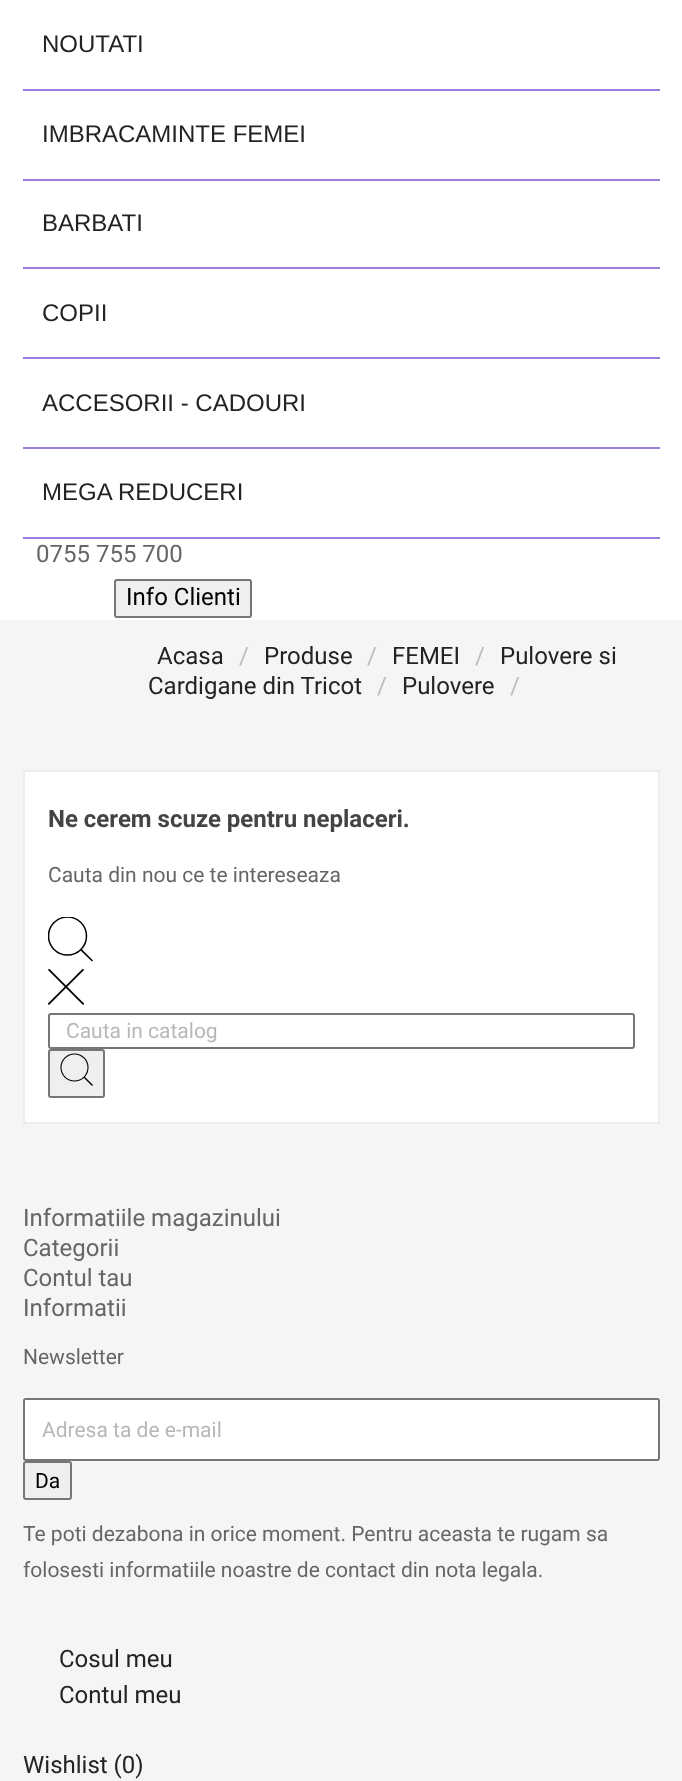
<!DOCTYPE html>
<meta charset="utf-8">
<style>body { margin: 0 } canvas { display: block }</style>
<canvas id="canvas" width="682" height="1781"></canvas>
<script type="module">
  const canvas = document.getElementById("canvas");
  const ctx = canvas.getContext("2d");
  ctx.miterLimit = 4;
  ctx.fontKerning = "normal";

  ctx.fillStyle = "#f5f5f5";
  ctx.fillRect(0, 0, 682, 1781);
  ctx.fillStyle = "#ffffff";
  ctx.fillRect(0, 0, 682, 620);
  ctx.fillStyle = "#9d7ce1";
  ctx.fillRect(23, 89, 637, 2);
  ctx.font = "24px Liberation Sans";
  ctx.fillStyle = "#232323";
  ctx.fillText("NOUTATI", 42, 52);
  ctx.fillStyle = "#9d7ce1";
  ctx.fillRect(23, 179, 637, 2);
  ctx.fillStyle = "#232323";
  ctx.fillText("IMBRACAMINTE FEMEI", 42, 142);
  ctx.fillStyle = "#9d7ce1";
  ctx.fillRect(23, 267, 637, 2);
  ctx.fillStyle = "#232323";
  ctx.fillText("BARBATI", 42, 231);
  ctx.fillStyle = "#9d7ce1";
  ctx.fillRect(23, 357, 637, 2);
  ctx.fillStyle = "#232323";
  ctx.fillText("COPII", 42, 321);
  ctx.fillStyle = "#9d7ce1";
  ctx.fillRect(23, 447, 637, 2);
  ctx.fillStyle = "#232323";
  ctx.fillText("ACCESORII - CADOURI", 42, 411);
  ctx.fillStyle = "#9d7ce1";
  ctx.fillRect(23, 537, 637, 2);
  ctx.fillStyle = "#232323";
  ctx.fillText("MEGA REDUCERI", 42, 500);
  ctx.font = "24px Roboto";
  ctx.fillStyle = "#666666";
  ctx.fillText("0755 755 700", 36, 562);
  ctx.fillStyle = "#efefef";
  ctx.beginPath();
  ctx.roundRect(115, 580, 136, 37, 2);
  ctx.fill();
  ctx.strokeStyle = "#767676";
  ctx.lineWidth = 2;
  ctx.stroke();
  ctx.fillStyle = "#000000";
  ctx.fillText("Info Clienti", 126, 605);
  ctx.fillStyle = "#232323";
  ctx.fillText("Acasa", 157, 664);
  ctx.fillStyle = "#bdbdbd";
  ctx.fillText("/", 239, 664);
  ctx.fillStyle = "#232323";
  ctx.fillText("Produse", 264, 664);
  ctx.fillStyle = "#bdbdbd";
  ctx.fillText("/", 367, 664);
  ctx.fillStyle = "#232323";
  ctx.fillText("FEMEI", 392, 664);
  ctx.fillStyle = "#bdbdbd";
  ctx.fillText("/", 475, 664);
  ctx.fillStyle = "#232323";
  ctx.fillText("Pulovere si", 500, 664);
  ctx.fillText("Cardigane din Tricot", 148, 694);
  ctx.fillStyle = "#bdbdbd";
  ctx.fillText("/", 377, 694);
  ctx.fillStyle = "#232323";
  ctx.fillText("Pulovere", 402, 694);
  ctx.fillStyle = "#bdbdbd";
  ctx.fillText("/", 510, 694);
  ctx.fillStyle = "#ffffff";
  ctx.beginPath();
  ctx.rect(24, 771, 635, 352);
  ctx.fill();
  ctx.strokeStyle = "#ededed";
  ctx.stroke();
  ctx.font = "bold 24px Roboto";
  ctx.fillStyle = "#444444";
  ctx.fillText("Ne cerem scuze pentru neplaceri.", 48, 827);
  ctx.font = "21px Roboto";
  ctx.fillStyle = "#666666";
  ctx.fillText("Cauta din nou ce te intereseaza", 48, 882);
  ctx.fillStyle = "#000000";
  ctx.beginPath();
  ctx.moveTo(92, 961.5);
  ctx.lineTo(80, 950);
  ctx.lineTo(81.5, 949);
  ctx.lineTo(93, 960.5);
  ctx.closePath();
  ctx.fill();
  ctx.save();
  ctx.beginPath();
  ctx.rect(48, 917, 45, 45);
  ctx.clip();
  ctx.beginPath();
  ctx.arc(67.5, 936, 19, 0, Math.PI * 2);
  ctx.strokeStyle = "#000000";
  ctx.lineWidth = 1.5;
  ctx.stroke();
  ctx.restore();
  ctx.save();
  ctx.beginPath();
  ctx.rect(48, 969, 36, 36);
  ctx.clip();
  ctx.beginPath();
  ctx.moveTo(48, 970);
  ctx.lineTo(49, 968.5);
  ctx.lineTo(84.5, 1004);
  ctx.lineTo(83, 1005);
  ctx.closePath();
  ctx.fill();
  ctx.beginPath();
  ctx.moveTo(49, 1005);
  ctx.lineTo(47.5, 1004);
  ctx.lineTo(83, 968.5);
  ctx.lineTo(84, 970);
  ctx.closePath();
  ctx.fill();
  ctx.restore();
  ctx.beginPath();
  ctx.roundRect(49, 1014, 585, 34, 2);
  ctx.strokeStyle = "#767676";
  ctx.stroke();
  ctx.fillStyle = "#b7b7b7";
  ctx.fillText("Cauta in catalog", 66, 1038);
  ctx.fillStyle = "#efefef";
  ctx.beginPath();
  ctx.roundRect(49, 1050, 55, 47, 2);
  ctx.fill();
  ctx.stroke();
  ctx.fillStyle = "#000000";
  ctx.beginPath();
  ctx.moveTo(92, 1086);
  ctx.lineTo(83.5, 1077.5);
  ctx.lineTo(84.5, 1076.5);
  ctx.lineTo(93, 1085);
  ctx.closePath();
  ctx.fill();
  ctx.beginPath();
  ctx.arc(74.5, 1067.5, 13.5, 0, Math.PI * 2);
  ctx.strokeStyle = "#000000";
  ctx.lineWidth = 1.1;
  ctx.stroke();
  ctx.font = "24px Roboto";
  ctx.fillStyle = "#666666";
  ctx.fillText("Informatiile magazinului", 23, 1226);
  ctx.fillText("Categorii", 23, 1256);
  ctx.fillText("Contul tau", 23, 1286);
  ctx.fillText("Informatii", 23, 1316);
  ctx.font = "21px Roboto";
  ctx.fillText("Newsletter", 23, 1364);
  ctx.fillStyle = "#ffffff";
  ctx.beginPath();
  ctx.roundRect(24, 1399, 635, 61, 2);
  ctx.fill();
  ctx.strokeStyle = "#767676";
  ctx.lineWidth = 2;
  ctx.stroke();
  ctx.fillStyle = "#b7b7b7";
  ctx.fillText("Adresa ta de e-mail", 42, 1437);
  ctx.fillStyle = "#efefef";
  ctx.beginPath();
  ctx.roundRect(24, 1462, 47, 37, 2);
  ctx.fill();
  ctx.stroke();
  ctx.fillStyle = "#000000";
  ctx.fillText("Da", 35, 1488);
  ctx.fillStyle = "#666666";
  ctx.fillText("Te poti dezabona in orice moment. Pentru aceasta te rugam sa", 23, 1541);
  ctx.fillText("folosesti informatiile noastre de contact din nota legala.", 23, 1577);
  ctx.font = "24px Roboto";
  ctx.fillStyle = "#232323";
  ctx.fillText("Cosul meu", 59, 1667);
  ctx.fillText("Contul meu", 59, 1703);
  ctx.fillText("Wishlist (0)", 23, 1773);
</script>
